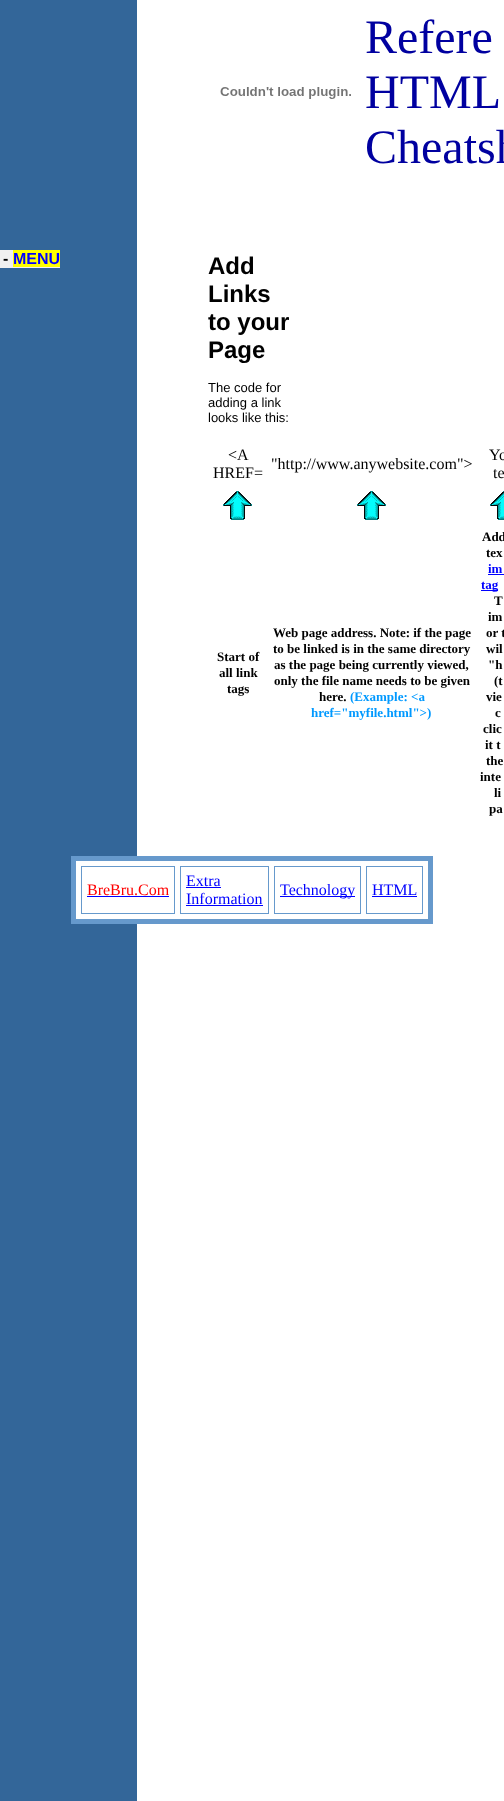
<!DOCTYPE html>
<meta charset="utf-8">
<style>body { margin: 0 } canvas { display: block }</style>
<canvas id="canvas" width="504" height="1801"></canvas>
<script type="module">
  const canvas = document.getElementById("canvas");
  const ctx = canvas.getContext("2d");
  ctx.miterLimit = 4;
  ctx.fontKerning = "normal";
  async function loadImage(src) {
    const img = new Image();
    img.src = src;
    await img.decode();
    return img;
  }

  ctx.fillStyle = "#ffffff";
  ctx.fillRect(0, 0, 504, 1801);
  ctx.fillStyle = "#336699";
  ctx.fillRect(0, 0, 137, 1801);
  ctx.fillStyle = "#f0f0f0";
  ctx.fillRect(0, 250, 60, 18);
  ctx.font = "bold 16px Liberation Sans";
  ctx.fillStyle = "#000000";
  ctx.fillText("-", 3, 264);
  ctx.fillStyle = "#ffff00";
  ctx.fillRect(13, 250, 47, 17);
  ctx.fillStyle = "#0000ff";
  ctx.fillText("MENU", 13, 264);
  ctx.drawImage(await loadImage("img1.png"), 220, 87, 131, 12);
  ctx.font = "48px Liberation Serif";
  ctx.fillStyle = "#0000a0";
  ctx.fillText("Refere", 365, 53);
  ctx.fillText("HTML", 365, 108);
  ctx.fillText("Cheatsh", 365, 163);
  ctx.font = "bold 24px Liberation Sans";
  ctx.fillStyle = "#000000";
  ctx.fillText("Add", 208, 274);
  ctx.fillText("Links", 208, 302);
  ctx.fillText("to your", 208, 330);
  ctx.fillText("Page", 208, 358);
  ctx.font = "13px Liberation Sans";
  ctx.fillText("The code for", 208, 392);
  ctx.fillText("adding a link", 208, 407);
  ctx.fillText("looks like this:", 208, 422);
  ctx.font = "16px Liberation Serif";
  ctx.fillText("<A", 228, 460);
  ctx.fillText("HREF=", 213, 478);
  ctx.fillText("\"http://www.anywebsite.com\">", 271, 469);
  ctx.fillText("Yo", 489, 460);
  ctx.fillText("te", 493, 478);
  ctx.drawImage(await loadImage("img2.png"), 223, 491, 29, 29);
  ctx.drawImage(await loadImage("img2.png"), 357, 491, 29, 29);
  ctx.drawImage(await loadImage("img3.png"), 490, 491, 14, 29);
  ctx.font = "bold 13px Liberation Serif";
  ctx.fillText("Start of", 217, 661);
  ctx.fillText("all link", 219, 677);
  ctx.fillText("tags", 227, 693);
  ctx.fillText("Web page address. Note: if the page", 273, 637);
  ctx.fillText("to be linked is in the same directory", 273, 653);
  ctx.fillText("as the page being currently viewed,", 274, 669);
  ctx.fillText("only the file name needs to be given", 274, 685);
  ctx.fillText("here.", 319, 701);
  ctx.fillStyle = "#0099ff";
  ctx.fillText("(Example: <a", 350, 701);
  ctx.fillText("href=\"myfile.html\">)", 311, 717);
  ctx.fillStyle = "#000000";
  ctx.fillText("Add", 482, 541);
  ctx.fillText("tex", 486, 557);
  ctx.fillStyle = "#0000ff";
  ctx.fillText("im", 488, 573);
  ctx.fillRect(488, 574, 16, 1);
  ctx.fillRect(481, 590, 17, 1);
  ctx.fillText("tag", 481, 589);
  ctx.fillStyle = "#000000";
  ctx.fillText("T", 494, 605);
  ctx.fillText("im", 488, 621);
  ctx.fillText("or t", 486, 637);
  ctx.fillText("wil", 486, 653);
  ctx.fillText("\"h", 488, 669);
  ctx.fillText("(t", 494, 685);
  ctx.fillText("vie", 486, 701);
  ctx.fillText("c", 495, 717);
  ctx.fillText("clic", 483, 733);
  ctx.fillText("it t", 485, 749);
  ctx.fillText("the", 486, 765);
  ctx.fillText("inte", 480, 781);
  ctx.fillText("li", 494, 797);
  ctx.fillText("pa", 489, 813);
  ctx.fillStyle = "#ffffff";
  ctx.fillRect(76, 861, 61, 58);
  ctx.strokeStyle = "#6699cc";
  ctx.lineWidth = 5;
  ctx.strokeRect(73.5, 858.5, 357, 63);
  ctx.lineWidth = 1;
  ctx.strokeRect(81.5, 866.5, 93, 47);
  ctx.font = "16px Liberation Serif";
  ctx.fillStyle = "#ff0000";
  ctx.fillText("BreBru.Com", 87, 895);
  ctx.fillStyle = "#0000ff";
  ctx.fillRect(87, 896, 82, 1);
  ctx.strokeRect(180.5, 866.5, 88, 47);
  ctx.fillText("Extra", 186, 886);
  ctx.fillRect(186, 887, 35, 1);
  ctx.fillText("Information", 186, 904);
  ctx.fillRect(186, 905, 77, 1);
  ctx.strokeRect(274.5, 866.5, 86, 47);
  ctx.fillRect(280, 896, 75, 1);
  ctx.fillText("Technology", 280, 895);
  ctx.strokeRect(366.5, 866.5, 56, 47);
  ctx.fillText("HTML", 372, 895);
  ctx.fillRect(372, 896, 45, 1);
</script>
